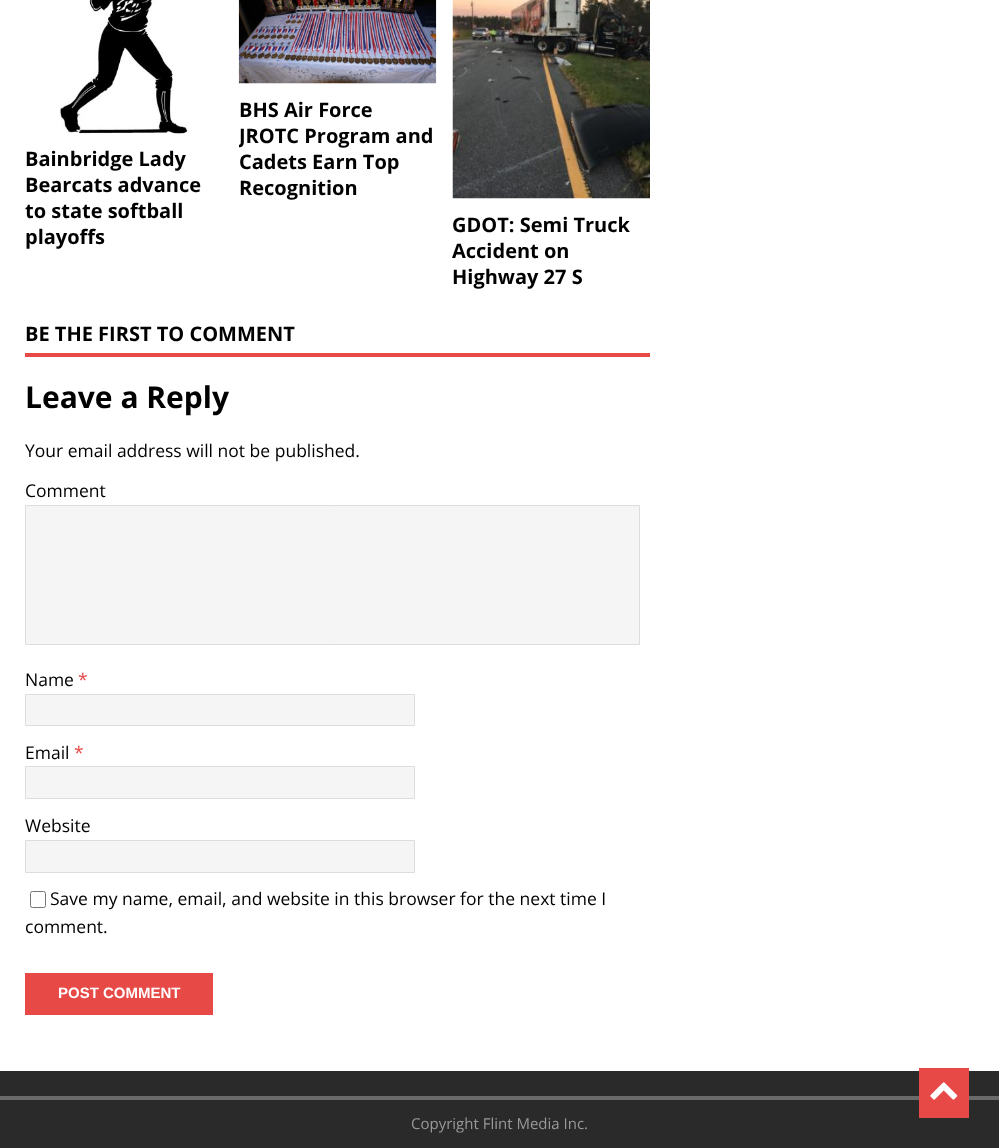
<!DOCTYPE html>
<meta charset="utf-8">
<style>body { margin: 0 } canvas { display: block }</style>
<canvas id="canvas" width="999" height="1148"></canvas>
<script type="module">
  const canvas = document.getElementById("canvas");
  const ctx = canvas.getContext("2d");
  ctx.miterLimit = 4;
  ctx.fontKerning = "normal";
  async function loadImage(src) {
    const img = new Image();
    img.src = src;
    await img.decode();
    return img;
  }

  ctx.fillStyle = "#ffffff";
  ctx.fillRect(0, 0, 999, 1148);
  ctx.drawImage(await loadImage("img1.png"), 59, 0, 129, 134);
  ctx.font = "bold 20px Open Sans";
  ctx.fillStyle = "#000000";
  ctx.fillText("Bainbridge Lady", 25, 166);
  ctx.fillText("Bearcats advance", 25, 192);
  ctx.fillText("to state softball", 25, 218);
  ctx.fillText("playoffs", 25, 244);
  ctx.drawImage(await loadImage("img2.png"), 238, 0, 199, 84);
  ctx.fillText("BHS Air Force", 239, 117);
  ctx.save();
  ctx.beginPath();
  ctx.rect(239, 0, 197, 201);
  ctx.clip();
  ctx.fillText("JROTC Program and", 239, 143);
  ctx.restore();
  ctx.fillText("Cadets Earn Top", 239, 169);
  ctx.fillText("Recognition", 239, 195);
  ctx.drawImage(await loadImage("img3.png"), 452, 0, 198, 199);
  ctx.fillText("GDOT: Semi Truck", 452, 232);
  ctx.fillText("Accident on", 452, 258);
  ctx.fillText("Highway 27 S", 452, 284);
  ctx.fillStyle = "#e64946";
  ctx.fillRect(25, 353, 625, 4);
  ctx.fillStyle = "#000000";
  ctx.fillText("BE THE FIRST TO COMMENT", 25, 341);
  ctx.font = "bold 30px Open Sans";
  ctx.fillText("Leave a Reply", 25, 408);
  ctx.font = "17.5px Open Sans";
  ctx.fillText("Your email address will not be published.", 25, 457);
  ctx.fillText("Comment", 25, 497);
  ctx.fillStyle = "#f5f5f5";
  ctx.beginPath();
  ctx.rect(25.5, 505.5, 614, 139);
  ctx.fill();
  ctx.strokeStyle = "#dddddd";
  ctx.stroke();
  ctx.fillStyle = "#000000";
  ctx.fillText("Name", 25, 686);
  ctx.fillStyle = "#e64946";
  ctx.fillText("*", 78, 686);
  ctx.fillStyle = "#f5f5f5";
  ctx.beginPath();
  ctx.rect(25.5, 694.5, 389, 31);
  ctx.fill();
  ctx.stroke();
  ctx.fillStyle = "#000000";
  ctx.fillText("Email", 25, 759);
  ctx.fillStyle = "#e64946";
  ctx.fillText("*", 74, 759);
  ctx.fillStyle = "#f5f5f5";
  ctx.beginPath();
  ctx.rect(25.5, 766.5, 389, 32);
  ctx.fill();
  ctx.stroke();
  ctx.fillStyle = "#000000";
  ctx.fillText("Website", 25, 832);
  ctx.fillStyle = "#f5f5f5";
  ctx.beginPath();
  ctx.rect(25.5, 840.5, 389, 32);
  ctx.fill();
  ctx.stroke();
  ctx.beginPath();
  ctx.roundRect(30.5, 891.5, 15, 16, 2);
  ctx.strokeStyle = "#767676";
  ctx.stroke();
  ctx.fillStyle = "#000000";
  ctx.fillText("Save my name, email, and website in this browser for the next time I", 50, 905);
  ctx.fillText("comment.", 25, 933);
  ctx.fillStyle = "#e64946";
  ctx.fillRect(25, 973, 188, 42);
  ctx.font = "bold 15px Liberation Sans";
  ctx.fillStyle = "#ffffff";
  ctx.fillText("POST COMMENT", 58, 998);
  ctx.fillStyle = "#2a2a2a";
  ctx.fillRect(0, 1071, 999, 25);
  ctx.fillRect(0, 1100, 999, 48);
  ctx.fillStyle = "#6a6a6a";
  ctx.fillRect(0, 1096, 999, 4);
  ctx.fillStyle = "#e64946";
  ctx.fillRect(919, 1068, 50, 50);
  ctx.drawImage(await loadImage("img4.png"), 930, 1082, 28, 18);
  ctx.font = "15px Open Sans";
  ctx.fillStyle = "#999999";
  ctx.fillText("Copyright Flint Media Inc.", 411, 1129);
</script>
